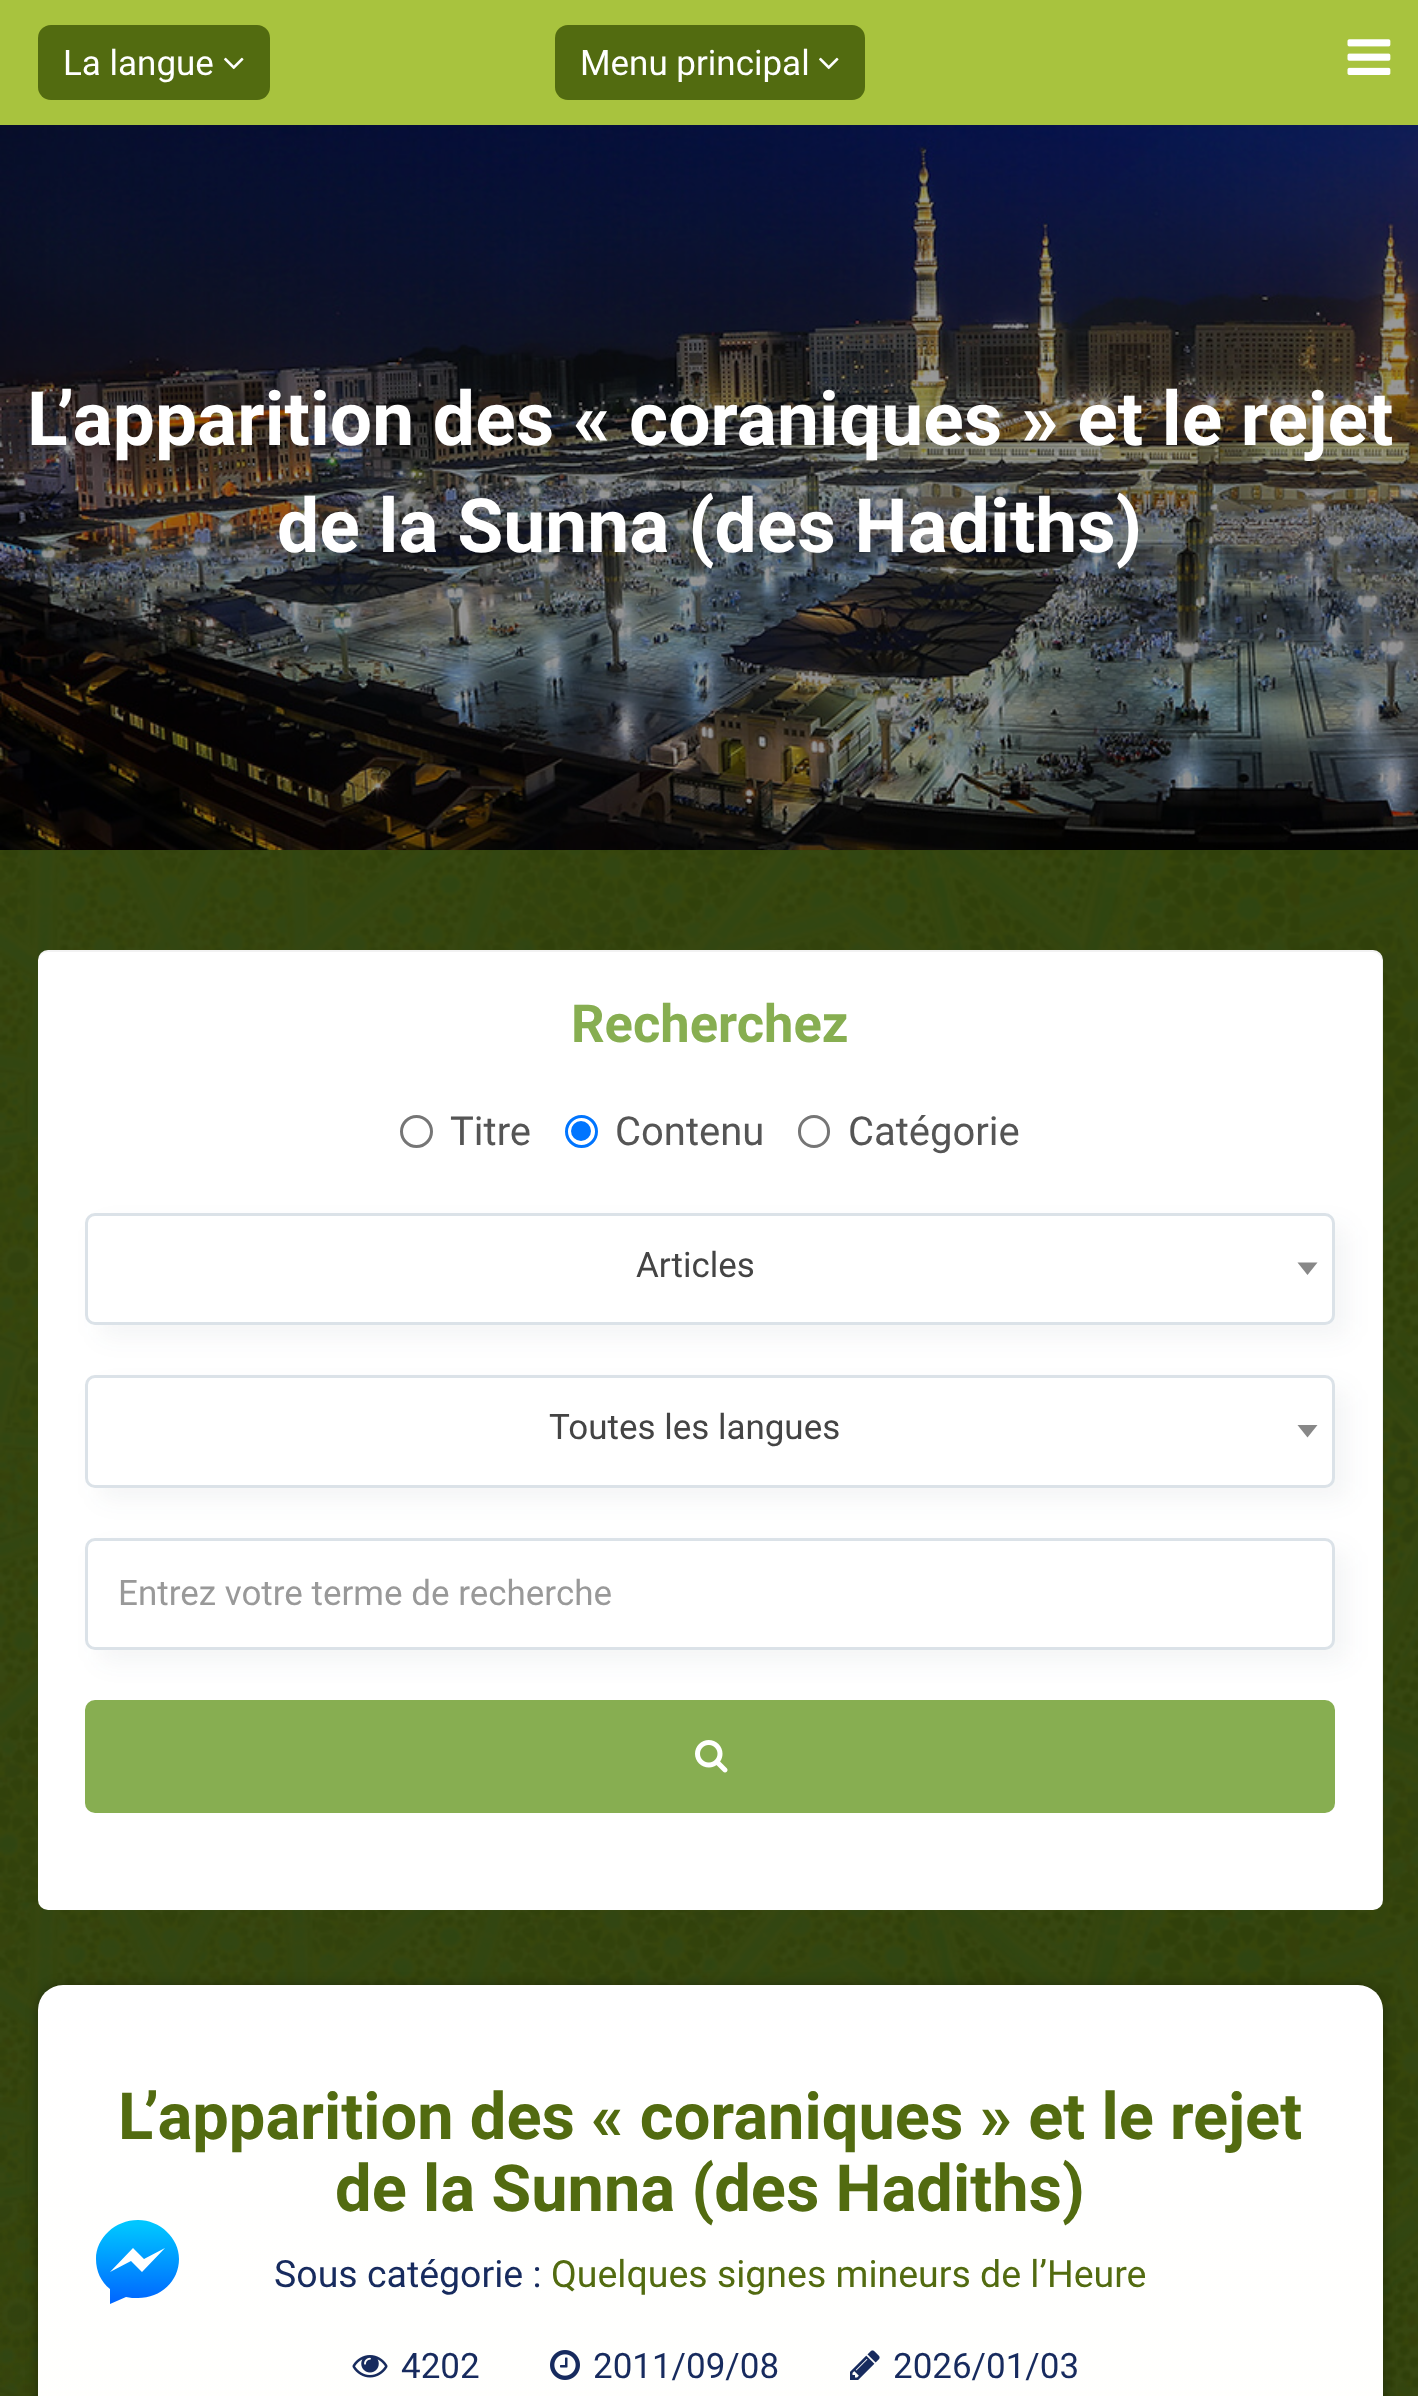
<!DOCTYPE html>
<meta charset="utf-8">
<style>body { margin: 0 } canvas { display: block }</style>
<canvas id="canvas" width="1418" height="2396"></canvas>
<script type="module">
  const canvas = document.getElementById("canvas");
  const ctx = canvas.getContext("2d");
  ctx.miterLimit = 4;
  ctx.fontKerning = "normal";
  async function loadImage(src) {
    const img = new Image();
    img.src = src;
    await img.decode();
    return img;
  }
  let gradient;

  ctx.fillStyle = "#ffffff";
  ctx.fillRect(0, 0, 1418, 2396);
  ctx.fillStyle = "#a8c33e";
  ctx.fillRect(0, 0, 1418, 125);
  ctx.fillStyle = "#526b10";
  ctx.beginPath();
  ctx.roundRect(38, 25, 232, 75, 13);
  ctx.fill();
  ctx.font = "35px Roboto";
  ctx.fillStyle = "#ffffff";
  ctx.fillText("La langue", 63, 75);
  ctx.drawImage(await loadImage("img1.png"), 224, 57, 20, 13);
  ctx.fillStyle = "#526b10";
  ctx.beginPath();
  ctx.roundRect(555, 25, 310, 75, 13);
  ctx.fill();
  ctx.fillStyle = "#ffffff";
  ctx.fillText("Menu principal", 580, 75);
  ctx.drawImage(await loadImage("img1.png"), 819, 57, 20, 13);
  ctx.drawImage(await loadImage("img2.png"), 1347, 39, 44, 36);
  ctx.drawImage(await loadImage("img3.png"), 0, 125, 1418, 725);
  ctx.font = "bold 75px Roboto";
  ctx.fillText("L’apparition des « coraniques » et le rejet", 27, 445);
  ctx.fillText("de la Sunna (des Hadiths)", 277, 552);
  ctx.drawImage(await loadImage("img4.png"), 0, 850, 1418, 1546);
  ctx.beginPath();
  ctx.roundRect(38, 950, 1345, 960, 10);
  ctx.fill();
  ctx.fillStyle = "rgba(0, 0, 0, 0.05)";
  ctx.beginPath();
  ctx.moveTo(48, 952);
  ctx.lineTo(1372, 952);
  ctx.bezierCurveTo(1378, 952, 1382, 957, 1382, 962);
  ctx.lineTo(1382, 1902);
  ctx.lineTo(1382, 1905);
  ctx.bezierCurveTo(1382, 1904, 1383, 1902, 1383, 1900);
  ctx.lineTo(1383, 960);
  ctx.bezierCurveTo(1383, 954, 1379, 950, 1373, 950);
  ctx.lineTo(48, 950);
  ctx.bezierCurveTo(42, 950, 38, 954, 38, 960);
  ctx.lineTo(38, 962);
  ctx.bezierCurveTo(38, 957, 42, 952, 48, 952);
  ctx.closePath();
  ctx.fill();
  ctx.font = "bold 52.5px Roboto";
  ctx.fillStyle = "#87ae51";
  ctx.fillText("Recherchez", 571, 1042);
  ctx.beginPath();
  ctx.arc(416.5, 1131.5, 15, 0, Math.PI * 2);
  ctx.strokeStyle = "#767676";
  ctx.lineWidth = 3;
  ctx.stroke();
  ctx.font = "40px Roboto";
  ctx.fillStyle = "#555555";
  ctx.fillText("Titre", 450, 1145);
  ctx.beginPath();
  ctx.arc(581.5, 1131.5, 15, 0, Math.PI * 2);
  ctx.strokeStyle = "#0075ff";
  ctx.stroke();
  ctx.fillStyle = "#0075ff";
  ctx.beginPath();
  ctx.arc(581, 1131, 10, 0, Math.PI * 2);
  ctx.fill();
  ctx.fillStyle = "#555555";
  ctx.fillText("Contenu", 615, 1145);
  ctx.beginPath();
  ctx.roundRect(799.5, 1116.5, 29, 30, 14.5);
  ctx.strokeStyle = "#767676";
  ctx.stroke();
  ctx.fillText("Catégorie", 848, 1145);
  ctx.fillStyle = "rgba(46, 61, 73, 0.05)";
  ctx.filter = "blur(12.5px)";
  ctx.beginPath();
  ctx.roundRect(98, 1225, 1250, 113, 10);
  ctx.fill();
  ctx.filter = "none";
  ctx.fillStyle = "#ffffff";
  ctx.beginPath();
  ctx.roundRect(86.5, 1214.5, 1247, 109, 8.5);
  ctx.fill();
  ctx.strokeStyle = "#dbe2e8";
  ctx.stroke();
  ctx.font = "35px Roboto";
  ctx.fillStyle = "#444444";
  ctx.fillText("Articles", 636, 1277);
  ctx.fillStyle = "#888888";
  ctx.beginPath();
  ctx.moveTo(1297.5, 1262.5);
  ctx.lineTo(1317.5, 1262.5);
  ctx.lineTo(1307.5, 1275);
  ctx.closePath();
  ctx.fill();
  ctx.fillStyle = "rgba(46, 61, 73, 0.05)";
  ctx.filter = "blur(12.5px)";
  ctx.beginPath();
  ctx.roundRect(98, 1550, 1250, 113, 10);
  ctx.fill();
  ctx.filter = "none";
  ctx.fillStyle = "#ffffff";
  ctx.beginPath();
  ctx.roundRect(86.5, 1539.5, 1247, 109, 8.5);
  ctx.fill();
  ctx.stroke();
  ctx.fillStyle = "rgba(46, 61, 73, 0.05)";
  ctx.filter = "blur(12.5px)";
  ctx.beginPath();
  ctx.roundRect(98, 1388, 1250, 112, 10);
  ctx.fill();
  ctx.filter = "none";
  ctx.fillStyle = "#ffffff";
  ctx.beginPath();
  ctx.roundRect(86.5, 1376.5, 1247, 110, 8.5);
  ctx.fill();
  ctx.stroke();
  ctx.fillStyle = "#444444";
  ctx.fillText("Toutes les langues", 549, 1439);
  ctx.fillStyle = "#888888";
  ctx.beginPath();
  ctx.moveTo(1297.5, 1425);
  ctx.lineTo(1317.5, 1425);
  ctx.lineTo(1307.5, 1437.5);
  ctx.closePath();
  ctx.fill();
  ctx.fillStyle = "#999999";
  ctx.fillText("Entrez votre terme de recherche", 118, 1605);
  ctx.fillStyle = "#87ae51";
  ctx.beginPath();
  ctx.roundRect(85, 1700, 1250, 113, 10);
  ctx.fill();
  ctx.drawImage(await loadImage("img5.png"), 695, 1740, 33, 33);
  ctx.fillStyle = "rgba(0, 0, 0, 0.3)";
  ctx.filter = "blur(6px)";
  ctx.beginPath();
  ctx.roundRect(38, 1985, 1345, 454, 25);
  ctx.fill();
  ctx.filter = "none";
  gradient = ctx.createLinearGradient(710, 1985, 710, 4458);
  gradient.addColorStop(0, "#ffffff");
  gradient.addColorStop(1, "#fdfff4");
  ctx.fillStyle = gradient;
  ctx.beginPath();
  ctx.roundRect(38, 1985, 1345, 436, 25);
  ctx.fill();
  ctx.font = "bold 65px Roboto";
  ctx.fillStyle = "#526b10";
  ctx.fillText("L’apparition des « coraniques » et le rejet", 118, 2139);
  ctx.fillText("de la Sunna (des Hadiths)", 335, 2211);
  ctx.font = "37.5px Roboto";
  ctx.fillStyle = "#172b5e";
  ctx.fillText("Sous catégorie :", 274, 2287);
  ctx.fillStyle = "#526b10";
  ctx.fillText("Quelques signes mineurs de l’Heure", 551, 2287);
  ctx.drawImage(await loadImage("img6.png"), 352, 2355, 36, 23);
  ctx.font = "35px Roboto";
  ctx.fillStyle = "#172b5e";
  ctx.fillText("4202", 401, 2378);
  ctx.drawImage(await loadImage("img7.png"), 550, 2350, 30, 30);
  ctx.fillText("2011/09/08", 593, 2378);
  ctx.drawImage(await loadImage("img8.png"), 850, 2350, 30, 30);
  ctx.fillText("2026/01/03", 893, 2378);
  gradient = ctx.createLinearGradient(138, 2304, 138, 2220);
  gradient.addColorStop(0.04, "#0068ff");
  gradient.addColorStop(0.95, "#00c6ff");
  ctx.fillStyle = gradient;
  ctx.beginPath();
  ctx.moveTo(96, 2259);
  ctx.bezierCurveTo(96, 2271, 101, 2282, 110, 2289);
  ctx.lineTo(110, 2304);
  ctx.lineTo(126, 2297);
  ctx.bezierCurveTo(130, 2298, 134, 2298, 138, 2298);
  ctx.bezierCurveTo(161, 2298, 179, 2281, 179, 2259);
  ctx.bezierCurveTo(179, 2238, 160, 2220, 138, 2220);
  ctx.bezierCurveTo(115, 2220, 96, 2238, 96, 2259);
  ctx.closePath();
  ctx.fill();
  ctx.fillStyle = "#ffffff";
  ctx.beginPath();
  ctx.moveTo(131, 2261);
  ctx.lineTo(110, 2272);
  ctx.lineTo(133, 2248);
  ctx.lineTo(144, 2259);
  ctx.lineTo(165, 2248);
  ctx.lineTo(142, 2272);
  ctx.closePath();
  ctx.fill();
</script>
